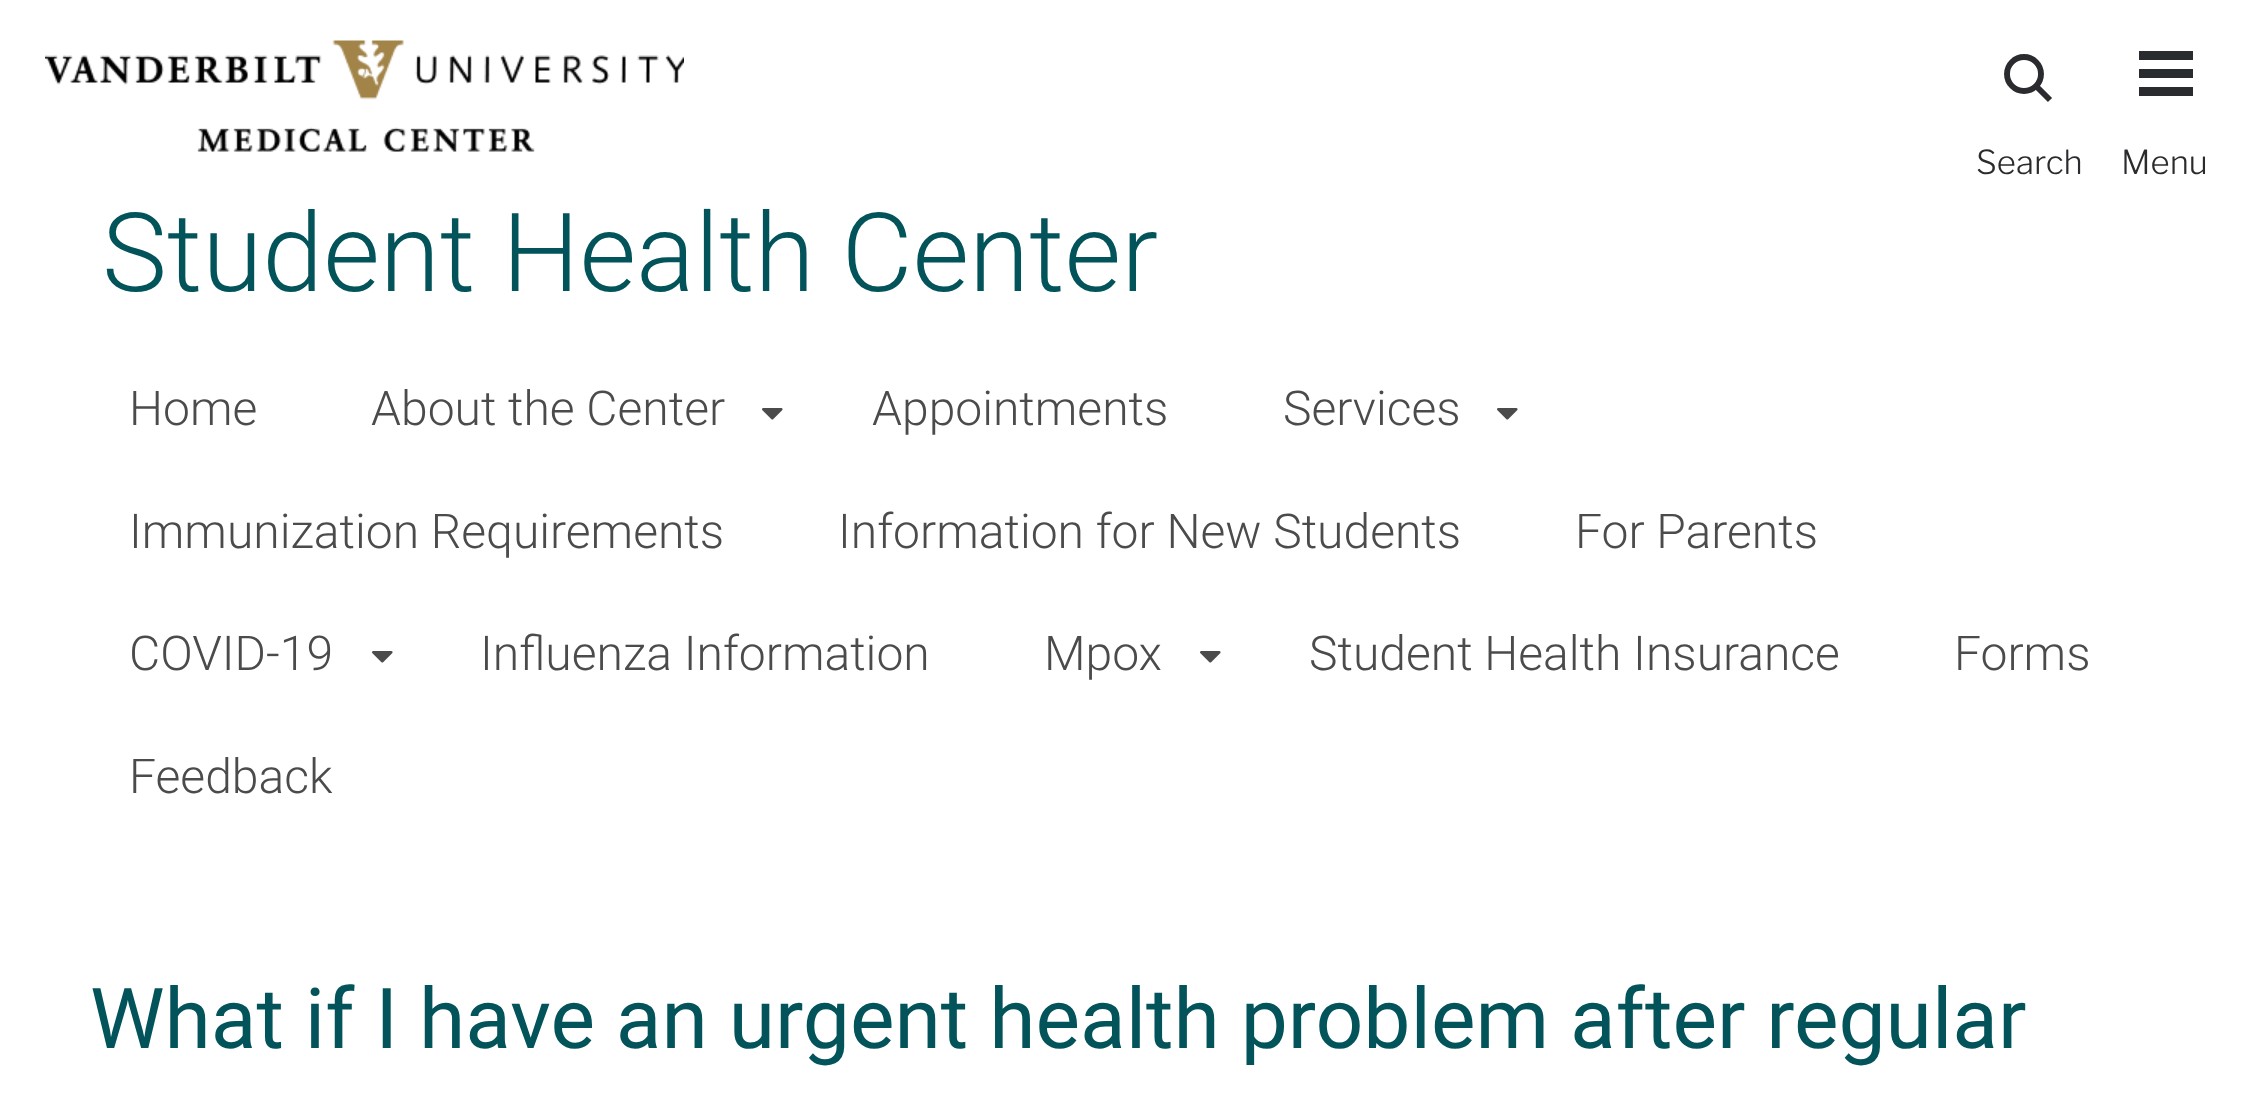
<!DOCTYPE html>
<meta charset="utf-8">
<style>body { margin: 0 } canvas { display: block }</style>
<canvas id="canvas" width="2251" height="1105"></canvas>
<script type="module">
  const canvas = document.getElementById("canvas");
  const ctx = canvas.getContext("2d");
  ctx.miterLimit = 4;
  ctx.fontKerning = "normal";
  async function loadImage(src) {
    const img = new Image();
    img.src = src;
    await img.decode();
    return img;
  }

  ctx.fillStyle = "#ffffff";
  ctx.fillRect(0, 0, 2251, 1105);
  ctx.drawImage(await loadImage("img1.png"), 45, 40, 639, 112);
  ctx.beginPath();
  ctx.moveTo(2036.5, 86.5);
  ctx.lineTo(2050, 100);
  ctx.strokeStyle = "#2a2b2e";
  ctx.lineWidth = 5.9;
  ctx.stroke();
  ctx.beginPath();
  ctx.arc(2024, 74, 17, 0, Math.PI * 2);
  ctx.stroke();
  ctx.font = "300 33px Libre Franklin";
  ctx.fillStyle = "#2a2b2e";
  ctx.fillText("Search", 1976, 174);
  ctx.fillRect(2139, 51, 54, 9);
  ctx.fillRect(2139, 69, 54, 9);
  ctx.fillRect(2139, 87, 54, 9);
  ctx.fillText("Menu", 2121, 174);
  ctx.font = "300 109.5px Roboto";
  ctx.fillStyle = "#02535a";
  ctx.fillText("Student Health Center", 102, 291);
  ctx.font = "300 48px Roboto";
  ctx.fillStyle = "#4b4b4b";
  ctx.fillText("Home", 129, 425);
  ctx.fillText("About the Center", 371, 425);
  ctx.drawImage(await loadImage("img2.png"), 762, 408, 21, 12);
  ctx.fillText("Appointments", 872, 425);
  ctx.fillText("Services", 1283, 425);
  ctx.drawImage(await loadImage("img2.png"), 1497, 408, 21, 12);
  ctx.fillText("Immunization Requirements", 129, 548);
  ctx.fillText("Information for New Students", 838, 548);
  ctx.fillText("For Parents", 1575, 548);
  ctx.fillText("COVID-19", 129, 670);
  ctx.drawImage(await loadImage("img2.png"), 372, 651, 21, 12);
  ctx.fillText("Influenza Information", 480, 670);
  ctx.fillText("Mpox", 1044, 670);
  ctx.drawImage(await loadImage("img2.png"), 1200, 651, 21, 12);
  ctx.fillText("Student Health Insurance", 1309, 670);
  ctx.fillText("Forms", 1954, 670);
  ctx.fillText("Feedback", 129, 793);
  ctx.font = "84px Roboto";
  ctx.fillStyle = "#02535a";
  ctx.fillText("What if I have an urgent health problem after regular", 90, 1048);
</script>
